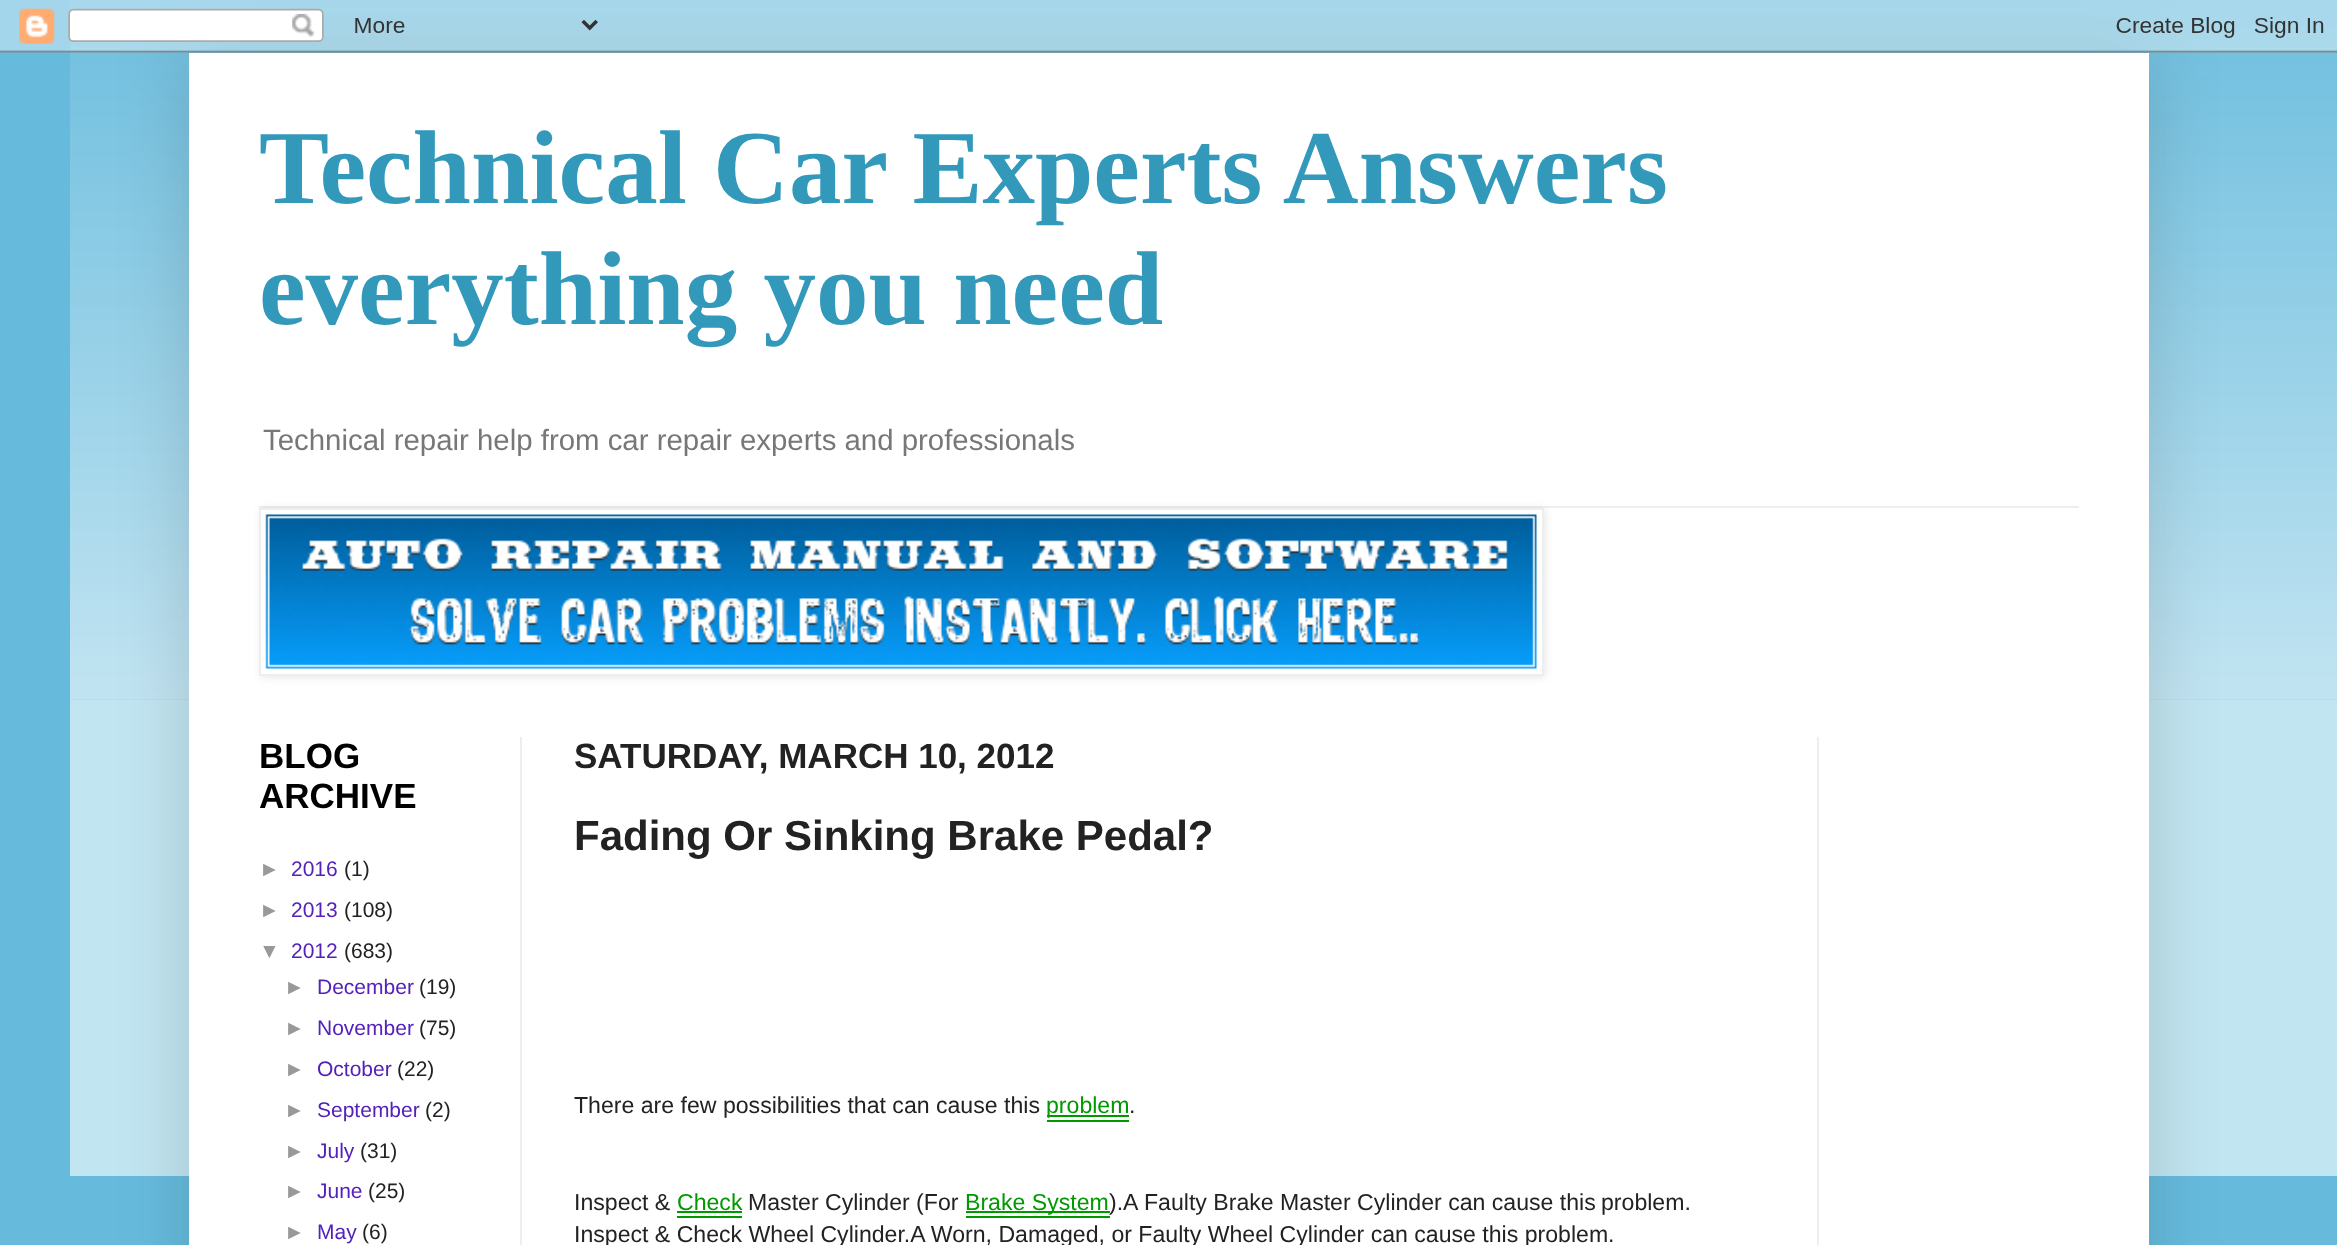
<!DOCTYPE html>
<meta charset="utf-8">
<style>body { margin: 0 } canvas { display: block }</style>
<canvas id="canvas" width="2337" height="1245"></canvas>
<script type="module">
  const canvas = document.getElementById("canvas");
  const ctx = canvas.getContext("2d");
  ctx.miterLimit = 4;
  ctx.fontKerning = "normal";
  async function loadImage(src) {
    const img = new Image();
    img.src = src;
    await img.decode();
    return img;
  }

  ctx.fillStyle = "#66bbdd";
  ctx.fillRect(0, 0, 2337, 1245);
  ctx.drawImage(await loadImage("img2.png"), 70, 0, 2267, 700);
  ctx.fillStyle = "#c1e5f1";
  ctx.fillRect(70, 700, 2267, 476);
  ctx.fillStyle = "rgba(0, 0, 0, 0.15)";
  ctx.filter = "blur(35px)";
  ctx.beginPath();
  ctx.rect(189, 53, 1960, 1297);
  ctx.fill();
  ctx.filter = "none";
  ctx.drawImage(await loadImage("img1.png"), 0, 0, 2337, 53);
  ctx.fillStyle = "#ffffff";
  ctx.fillRect(189, 53, 1960, 1192);
  ctx.font = "bold 105px Liberation Serif";
  ctx.fillStyle = "#3399bb";
  ctx.fillText("Technical Car Experts Answers", 259, 203);
  ctx.fillText("everything you need", 259, 324);
  ctx.font = "29.4px Liberation Sans";
  ctx.fillStyle = "#777777";
  ctx.fillText("Technical repair help from car repair experts and professionals", 263, 450);
  ctx.fillStyle = "#eeeeee";
  ctx.fillRect(259, 506, 1820, 2);
  ctx.fillStyle = "rgba(0, 0, 0, 0.1)";
  ctx.filter = "blur(4.5px)";
  ctx.beginPath();
  ctx.rect(261, 509, 1284, 168);
  ctx.fill();
  ctx.filter = "none";
  ctx.fillStyle = "#ffffff";
  ctx.beginPath();
  ctx.rect(260, 509, 1283, 166);
  ctx.fill();
  ctx.strokeStyle = "#eeeeee";
  ctx.lineWidth = 2;
  ctx.stroke();
  ctx.drawImage(await loadImage("img3.png"), 265, 514, 1272, 155);
  ctx.fillStyle = "#eeeeee";
  ctx.fillRect(520, 737, 2, 508);
  ctx.fillRect(1817, 737, 2, 508);
  ctx.font = "bold 35px Liberation Sans";
  ctx.fillStyle = "#000000";
  ctx.fillText("BLOG", 259, 768);
  ctx.fillText("ARCHIVE", 259, 808);
  ctx.font = "21px Liberation Sans";
  ctx.fillStyle = "#999999";
  ctx.fillText("►", 259, 876);
  ctx.fillStyle = "#5421bb";
  ctx.fillText("2016", 291, 876);
  ctx.fillStyle = "#222222";
  ctx.fillText("(1)", 344, 876);
  ctx.fillStyle = "#999999";
  ctx.fillText("►", 259, 917);
  ctx.fillStyle = "#5421bb";
  ctx.fillText("2013", 291, 917);
  ctx.fillStyle = "#222222";
  ctx.fillText("(108)", 344, 917);
  ctx.fillStyle = "#999999";
  ctx.fillText("▼", 259, 958);
  ctx.fillStyle = "#5421bb";
  ctx.fillText("2012", 291, 958);
  ctx.fillStyle = "#222222";
  ctx.fillText("(683)", 344, 958);
  ctx.fillStyle = "#999999";
  ctx.fillText("►", 284, 994);
  ctx.fillStyle = "#5421bb";
  ctx.fillText("December", 317, 994);
  ctx.fillStyle = "#222222";
  ctx.fillText("(19)", 419, 994);
  ctx.fillStyle = "#999999";
  ctx.fillText("►", 284, 1035);
  ctx.fillStyle = "#5421bb";
  ctx.fillText("November", 317, 1035);
  ctx.fillStyle = "#222222";
  ctx.fillText("(75)", 419, 1035);
  ctx.fillStyle = "#999999";
  ctx.fillText("►", 284, 1076);
  ctx.fillStyle = "#5421bb";
  ctx.fillText("October", 317, 1076);
  ctx.fillStyle = "#222222";
  ctx.fillText("(22)", 397, 1076);
  ctx.fillStyle = "#999999";
  ctx.fillText("►", 284, 1117);
  ctx.fillStyle = "#5421bb";
  ctx.fillText("September", 317, 1117);
  ctx.fillStyle = "#222222";
  ctx.fillText("(2)", 425, 1117);
  ctx.fillStyle = "#999999";
  ctx.fillText("►", 284, 1158);
  ctx.fillStyle = "#5421bb";
  ctx.fillText("July", 317, 1158);
  ctx.fillStyle = "#222222";
  ctx.fillText("(31)", 360, 1158);
  ctx.fillStyle = "#999999";
  ctx.fillText("►", 284, 1198);
  ctx.fillStyle = "#5421bb";
  ctx.fillText("June", 317, 1198);
  ctx.fillStyle = "#222222";
  ctx.fillText("(25)", 368, 1198);
  ctx.fillStyle = "#999999";
  ctx.fillText("►", 284, 1239);
  ctx.fillStyle = "#5421bb";
  ctx.fillText("May", 317, 1239);
  ctx.fillStyle = "#222222";
  ctx.fillText("(6)", 362, 1239);
  ctx.font = "bold 35px Liberation Sans";
  ctx.fillText("SATURDAY, MARCH 10, 2012", 574, 768);
  ctx.font = "bold 42px Liberation Sans";
  ctx.fillText("Fading Or Sinking Brake Pedal?", 574, 850);
  ctx.font = "23.1px Liberation Sans";
  ctx.fillText("There are few possibilities that can cause this", 574, 1113);
  ctx.fillStyle = "#009900";
  ctx.fillRect(1047, 1115, 82, 2);
  ctx.fillText("problem", 1046, 1113);
  ctx.fillRect(1047, 1120, 82, 2);
  ctx.fillStyle = "#222222";
  ctx.fillText(".", 1129, 1113);
  ctx.fillText("Inspect &", 574, 1210);
  ctx.fillStyle = "#009900";
  ctx.fillText("Check", 677, 1210);
  ctx.fillRect(677, 1216, 65, 2);
  ctx.fillRect(677, 1211, 65, 2);
  ctx.fillStyle = "#222222";
  ctx.fillText("Master Cylinder (For", 748, 1210);
  ctx.fillStyle = "#009900";
  ctx.fillRect(966, 1211, 144, 2);
  ctx.fillText("Brake System", 965, 1210);
  ctx.fillRect(966, 1216, 144, 2);
  ctx.fillStyle = "#222222";
  ctx.fillText(").A", 1109, 1210);
  ctx.fillText("Faulty Brake Master Cylinder can cause this", 1144, 1210);
  ctx.fillText("problem.", 1601, 1210);
  ctx.fillText("Inspect & Check Wheel Cylinder.A Worn, Damaged, or Faulty Wheel Cylinder can cause this problem.", 574, 1242);
</script>
